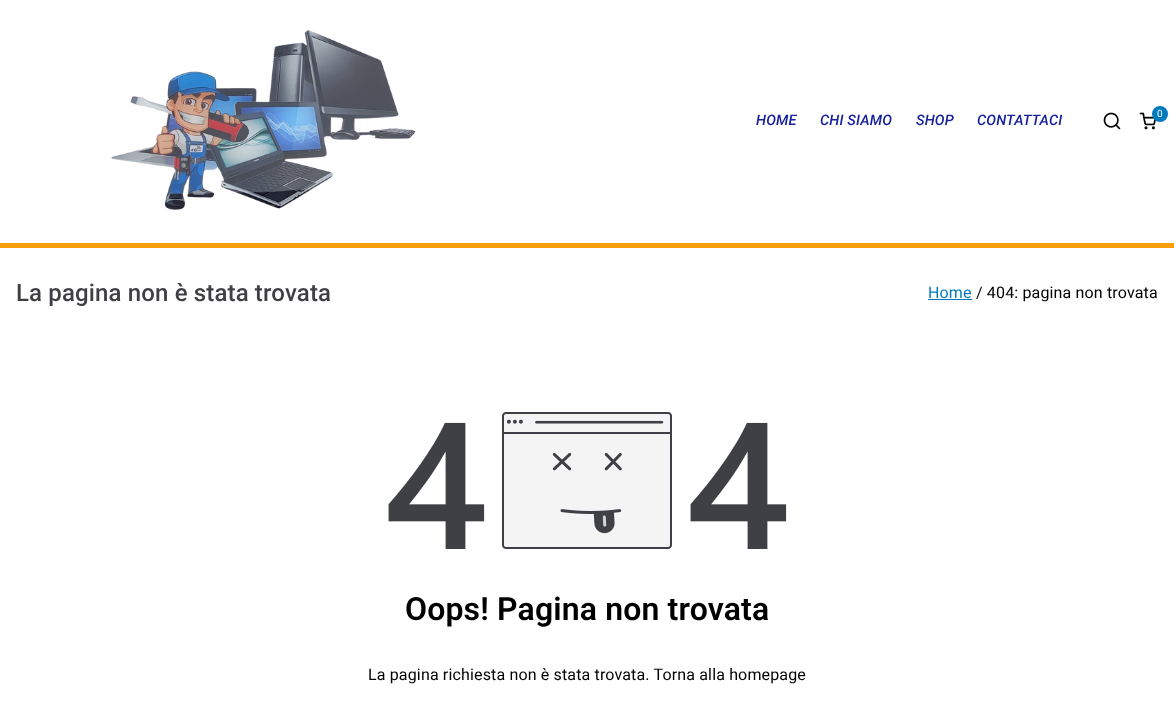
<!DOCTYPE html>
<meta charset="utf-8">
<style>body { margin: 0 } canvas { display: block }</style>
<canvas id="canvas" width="1174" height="724"></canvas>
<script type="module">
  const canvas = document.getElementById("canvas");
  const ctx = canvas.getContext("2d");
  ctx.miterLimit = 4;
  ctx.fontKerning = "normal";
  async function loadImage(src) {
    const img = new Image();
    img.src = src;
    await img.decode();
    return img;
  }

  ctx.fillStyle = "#fb9d08";
  ctx.fillRect(0, 0, 1174, 724);
  ctx.fillStyle = "#ffffff";
  ctx.fillRect(0, 0, 1174, 243);
  ctx.drawImage(await loadImage("img1.png"), 111, 30, 305, 180);
  ctx.letterSpacing = "0.15px";
  ctx.font = "italic 500 14.5px Roboto";
  ctx.fillStyle = "#17209d";
  ctx.fillText("HOME", 756, 125);
  ctx.fillText("CHI SIAMO", 820, 125);
  ctx.fillText("SHOP", 916, 125);
  ctx.fillText("CONTATTACI", 977, 125);
  ctx.drawImage(await loadImage("img2.png"), 1103, 112, 18, 18);
  ctx.drawImage(await loadImage("img3.png"), 1139, 112, 17, 18);
  ctx.fillStyle = "#027abb";
  ctx.beginPath();
  ctx.arc(1160, 114, 8, 0, Math.PI * 2);
  ctx.fill();
  ctx.font = "10px Roboto";
  ctx.fillStyle = "#fafafa";
  ctx.fillText("0", 1157, 117);
  ctx.fillStyle = "#ffffff";
  ctx.fillRect(0, 248, 1174, 476);
  ctx.font = "500 24px Roboto";
  ctx.fillStyle = "#3f3f46";
  ctx.fillText("La pagina non è stata trovata", 16, 301);
  ctx.font = "16px Roboto";
  ctx.fillStyle = "#027abb";
  ctx.fillText("Home", 928, 298);
  ctx.fillRect(928, 299, 44, 1);
  ctx.fillStyle = "#000000";
  ctx.fillText("/ 404: pagina non trovata", 976, 298);
  ctx.drawImage(await loadImage("img4.png"), 388, 412, 399, 137);
  ctx.font = "600 32px Roboto";
  ctx.fillText("Oops! Pagina non trovata", 405, 620);
  ctx.font = "16px Roboto";
  ctx.fillText("La pagina richiesta non è stata trovata. Torna alla homepage", 368, 680);
</script>
